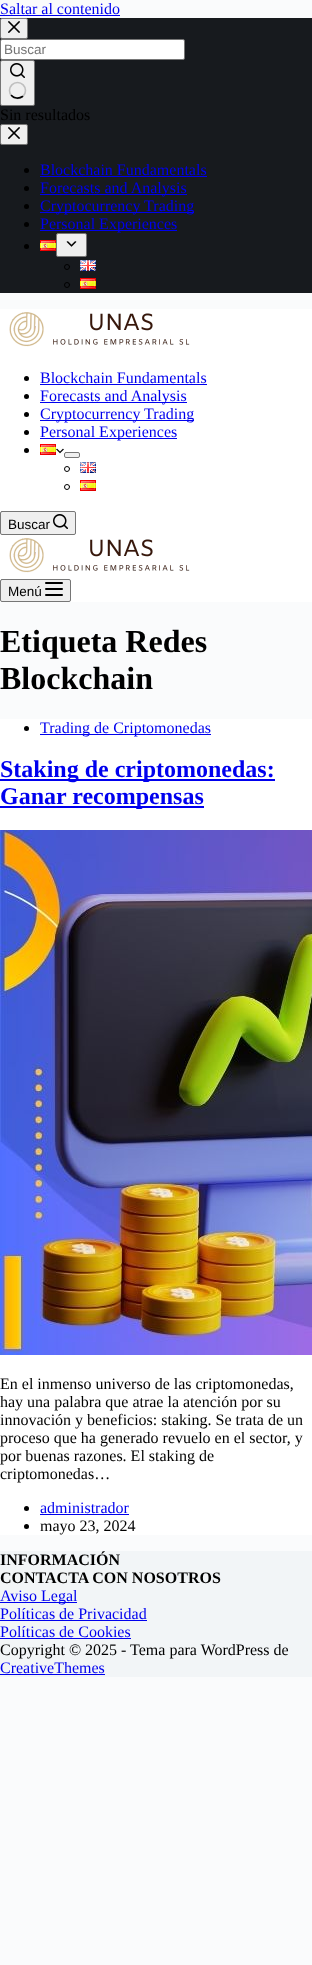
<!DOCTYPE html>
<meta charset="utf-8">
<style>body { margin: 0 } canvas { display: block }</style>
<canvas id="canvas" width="312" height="1965"></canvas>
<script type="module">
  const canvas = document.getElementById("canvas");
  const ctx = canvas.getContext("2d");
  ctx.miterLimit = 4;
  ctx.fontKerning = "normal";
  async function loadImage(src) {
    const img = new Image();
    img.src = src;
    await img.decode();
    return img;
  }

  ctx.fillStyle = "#fafbfc";
  ctx.fillRect(0, 0, 312, 1965);
  ctx.font = "16px Liberation Serif";
  ctx.fillStyle = "#0000ee";
  ctx.fillText("Saltar al contenido", 0, 14);
  ctx.fillRect(0, 15, 120, 1);
  ctx.fillStyle = "#171a1e";
  ctx.fillRect(0, 18, 312, 275);
  ctx.fillStyle = "#efefef";
  ctx.beginPath();
  ctx.roundRect(0.5, 18.5, 27, 20, 1.5);
  ctx.fill();
  ctx.strokeStyle = "#767676";
  ctx.stroke();
  ctx.drawImage(await loadImage("img1.png"), 8, 21, 12, 12);
  ctx.fillStyle = "#ffffff";
  ctx.beginPath();
  ctx.roundRect(0.5, 39.5, 184, 20, 1.5);
  ctx.fill();
  ctx.stroke();
  ctx.font = "13.5px Liberation Sans";
  ctx.fillStyle = "#757575";
  ctx.fillText("Buscar", 4, 54);
  ctx.fillStyle = "#efefef";
  ctx.beginPath();
  ctx.roundRect(0.5, 60.5, 34, 45, 1.5);
  ctx.fill();
  ctx.stroke();
  ctx.drawImage(await loadImage("img2.png"), 10, 63, 15, 15);
  ctx.beginPath();
  ctx.arc(17.5, 90.5, 8, 0, Math.PI * 2);
  ctx.strokeStyle = "#bfbfbf";
  ctx.lineWidth = 1.6;
  ctx.stroke();
  ctx.beginPath();
  ctx.moveTo(22.5, 96.5);
  ctx.bezierCurveTo(19, 99, 14, 98.5, 11.5, 95.5);
  ctx.strokeStyle = "#000000";
  ctx.lineCap = "round";
  ctx.stroke();
  ctx.font = "16px Liberation Serif";
  ctx.fillStyle = "#000000";
  ctx.fillText("Sin resultados", 0, 120);
  ctx.fillStyle = "#efefef";
  ctx.beginPath();
  ctx.roundRect(0.5, 124.5, 27, 20, 1.5);
  ctx.fill();
  ctx.strokeStyle = "#767676";
  ctx.lineWidth = 1;
  ctx.stroke();
  ctx.drawImage(await loadImage("img1.png"), 8, 127, 12, 12);
  ctx.fillStyle = "#000000";
  ctx.beginPath();
  ctx.arc(26.5, 170.5, 2.5, 0, Math.PI * 2);
  ctx.fill();
  ctx.fillStyle = "#0000ee";
  ctx.fillText("Blockchain Fundamentals", 40, 175);
  ctx.fillRect(40, 176, 167, 1);
  ctx.fillStyle = "#000000";
  ctx.beginPath();
  ctx.arc(26.5, 188.5, 2.5, 0, Math.PI * 2);
  ctx.fill();
  ctx.fillStyle = "#0000ee";
  ctx.fillRect(40, 194, 147, 1);
  ctx.fillText("Forecasts and Analysis", 40, 193);
  ctx.fillStyle = "#000000";
  ctx.beginPath();
  ctx.arc(26.5, 206.5, 2.5, 0, Math.PI * 2);
  ctx.fill();
  ctx.fillStyle = "#0000ee";
  ctx.fillRect(40, 212, 154, 1);
  ctx.fillText("Cryptocurrency Trading", 40, 211);
  ctx.fillStyle = "#000000";
  ctx.beginPath();
  ctx.arc(26.5, 224.5, 2.5, 0, Math.PI * 2);
  ctx.fill();
  ctx.fillStyle = "#0000ee";
  ctx.fillRect(40, 230, 137, 1);
  ctx.fillText("Personal Experiences", 40, 229);
  ctx.fillStyle = "#000000";
  ctx.beginPath();
  ctx.arc(26.5, 246.5, 2.5, 0, Math.PI * 2);
  ctx.fill();
  ctx.drawImage(await loadImage("img3.png"), 40, 240, 16, 11);
  ctx.fillStyle = "#efefef";
  ctx.beginPath();
  ctx.roundRect(56.5, 233.5, 30, 23, 1.5);
  ctx.fill();
  ctx.stroke();
  ctx.drawImage(await loadImage("img4.png"), 66, 241, 11, 6);
  ctx.beginPath();
  ctx.arc(67, 267, 2.5, 0, Math.PI * 2);
  ctx.strokeStyle = "#000000";
  ctx.stroke();
  ctx.drawImage(await loadImage("img5.png"), 80, 260, 16, 11);
  ctx.beginPath();
  ctx.arc(67, 285, 2.5, 0, Math.PI * 2);
  ctx.stroke();
  ctx.drawImage(await loadImage("img3.png"), 80, 278, 16, 11);
  ctx.fillStyle = "#ffffff";
  ctx.fillRect(0, 309, 312, 293);
  ctx.drawImage(await loadImage("img6.png"), 9, 312, 181, 35);
  ctx.fillStyle = "#000000";
  ctx.beginPath();
  ctx.arc(26.5, 378.5, 2.5, 0, Math.PI * 2);
  ctx.fill();
  ctx.fillStyle = "#0000ee";
  ctx.fillText("Blockchain Fundamentals", 40, 383);
  ctx.fillRect(40, 384, 167, 1);
  ctx.fillStyle = "#000000";
  ctx.beginPath();
  ctx.arc(26.5, 396.5, 2.5, 0, Math.PI * 2);
  ctx.fill();
  ctx.fillStyle = "#0000ee";
  ctx.fillRect(40, 402, 147, 1);
  ctx.fillText("Forecasts and Analysis", 40, 401);
  ctx.fillStyle = "#000000";
  ctx.beginPath();
  ctx.arc(26.5, 414.5, 2.5, 0, Math.PI * 2);
  ctx.fill();
  ctx.fillStyle = "#0000ee";
  ctx.fillRect(40, 420, 154, 1);
  ctx.fillText("Cryptocurrency Trading", 40, 419);
  ctx.fillStyle = "#000000";
  ctx.beginPath();
  ctx.arc(26.5, 432.5, 2.5, 0, Math.PI * 2);
  ctx.fill();
  ctx.fillStyle = "#0000ee";
  ctx.fillRect(40, 438, 137, 1);
  ctx.fillText("Personal Experiences", 40, 437);
  ctx.fillStyle = "#000000";
  ctx.beginPath();
  ctx.arc(26.5, 450.5, 2.5, 0, Math.PI * 2);
  ctx.fill();
  ctx.drawImage(await loadImage("img3.png"), 40, 444, 16, 11);
  ctx.drawImage(await loadImage("img7.png"), 56, 448, 8, 6);
  ctx.fillStyle = "#efefef";
  ctx.beginPath();
  ctx.roundRect(64.5, 452.5, 15, 5, 1.5);
  ctx.fill();
  ctx.strokeStyle = "#767676";
  ctx.stroke();
  ctx.beginPath();
  ctx.arc(67, 469, 2.5, 0, Math.PI * 2);
  ctx.strokeStyle = "#000000";
  ctx.stroke();
  ctx.drawImage(await loadImage("img5.png"), 80, 462, 16, 11);
  ctx.beginPath();
  ctx.arc(67, 487, 2.5, 0, Math.PI * 2);
  ctx.stroke();
  ctx.drawImage(await loadImage("img3.png"), 80, 480, 16, 11);
  ctx.beginPath();
  ctx.roundRect(0.5, 511.5, 75, 23, 1.5);
  ctx.fill();
  ctx.strokeStyle = "#767676";
  ctx.stroke();
  ctx.font = "13.5px Liberation Sans";
  ctx.fillStyle = "#000000";
  ctx.fillText("Buscar", 8, 529);
  ctx.drawImage(await loadImage("img2.png"), 53, 514, 15, 15);
  ctx.drawImage(await loadImage("img6.png"), 9, 538, 181, 35);
  ctx.fillStyle = "#efefef";
  ctx.beginPath();
  ctx.roundRect(0.5, 579.5, 70, 22, 1.5);
  ctx.fill();
  ctx.stroke();
  ctx.fillStyle = "#000000";
  ctx.beginPath();
  ctx.roundRect(45, 582, 18, 2, 1);
  ctx.fill();
  ctx.fillText("Menú", 8, 596);
  ctx.beginPath();
  ctx.roundRect(45, 588, 18, 2, 1);
  ctx.fill();
  ctx.beginPath();
  ctx.roundRect(45, 594, 18, 2, 1);
  ctx.fill();
  ctx.font = "bold 32px Liberation Serif";
  ctx.fillText("Etiqueta Redes", 0, 652);
  ctx.fillText("Blockchain", 0, 689);
  ctx.fillStyle = "#ffffff";
  ctx.fillRect(0, 719, 312, 816);
  ctx.fillStyle = "#000000";
  ctx.beginPath();
  ctx.arc(26.5, 728.5, 2.5, 0, Math.PI * 2);
  ctx.fill();
  ctx.fillStyle = "#0000ee";
  ctx.fillRect(40, 734, 171, 1);
  ctx.font = "16px Liberation Serif";
  ctx.fillText("Trading de Criptomonedas", 40, 733);
  ctx.fillRect(0, 779, 275, 2);
  ctx.font = "bold 24px Liberation Serif";
  ctx.fillText("Staking de criptomonedas:", 0, 777);
  ctx.fillRect(0, 806, 204, 2);
  ctx.fillText("Ganar recompensas", 0, 804);
  ctx.drawImage(await loadImage("img8.png"), 0, 830, 312, 525);
  ctx.font = "16px Liberation Serif";
  ctx.fillStyle = "#000000";
  ctx.fillText("En el inmenso universo de las criptomonedas,", 0, 1389);
  ctx.fillText("hay una palabra que atrae la atención por su", 0, 1407);
  ctx.fillText("innovación y beneficios: staking. Se trata de un", 0, 1425);
  ctx.fillText("proceso que ha generado revuelo en el sector, y", 0, 1443);
  ctx.fillText("por buenas razones. El staking de", 0, 1461);
  ctx.fillText("criptomonedas…", 0, 1479);
  ctx.beginPath();
  ctx.arc(26.5, 1508.5, 2.5, 0, Math.PI * 2);
  ctx.fill();
  ctx.fillStyle = "#0000ee";
  ctx.fillText("administrador", 40, 1513);
  ctx.fillRect(40, 1514, 89, 1);
  ctx.fillStyle = "#000000";
  ctx.beginPath();
  ctx.arc(26.5, 1526.5, 2.5, 0, Math.PI * 2);
  ctx.fill();
  ctx.fillText("mayo 23, 2024", 40, 1531);
  ctx.fillStyle = "#f2f5f7";
  ctx.fillRect(0, 1551, 312, 126);
  ctx.font = "bold 16px Liberation Serif";
  ctx.fillStyle = "#000000";
  ctx.fillText("INFORMACIÓN", 0, 1565);
  ctx.fillText("CONTACTA CON NOSOTROS", 0, 1583);
  ctx.fillStyle = "#0000ee";
  ctx.fillRect(0, 1602, 77, 1);
  ctx.font = "16px Liberation Serif";
  ctx.fillText("Aviso Legal", 0, 1601);
  ctx.fillText("Políticas de Privacidad", 0, 1619);
  ctx.fillRect(0, 1620, 147, 1);
  ctx.fillText("Políticas de Cookies", 0, 1637);
  ctx.fillRect(0, 1638, 131, 1);
  ctx.fillStyle = "#000000";
  ctx.fillText("Copyright © 2025 - Tema para WordPress de", 0, 1655);
  ctx.fillStyle = "#0000ee";
  ctx.fillText("CreativeThemes", 0, 1673);
  ctx.fillRect(0, 1674, 105, 1);
</script>
